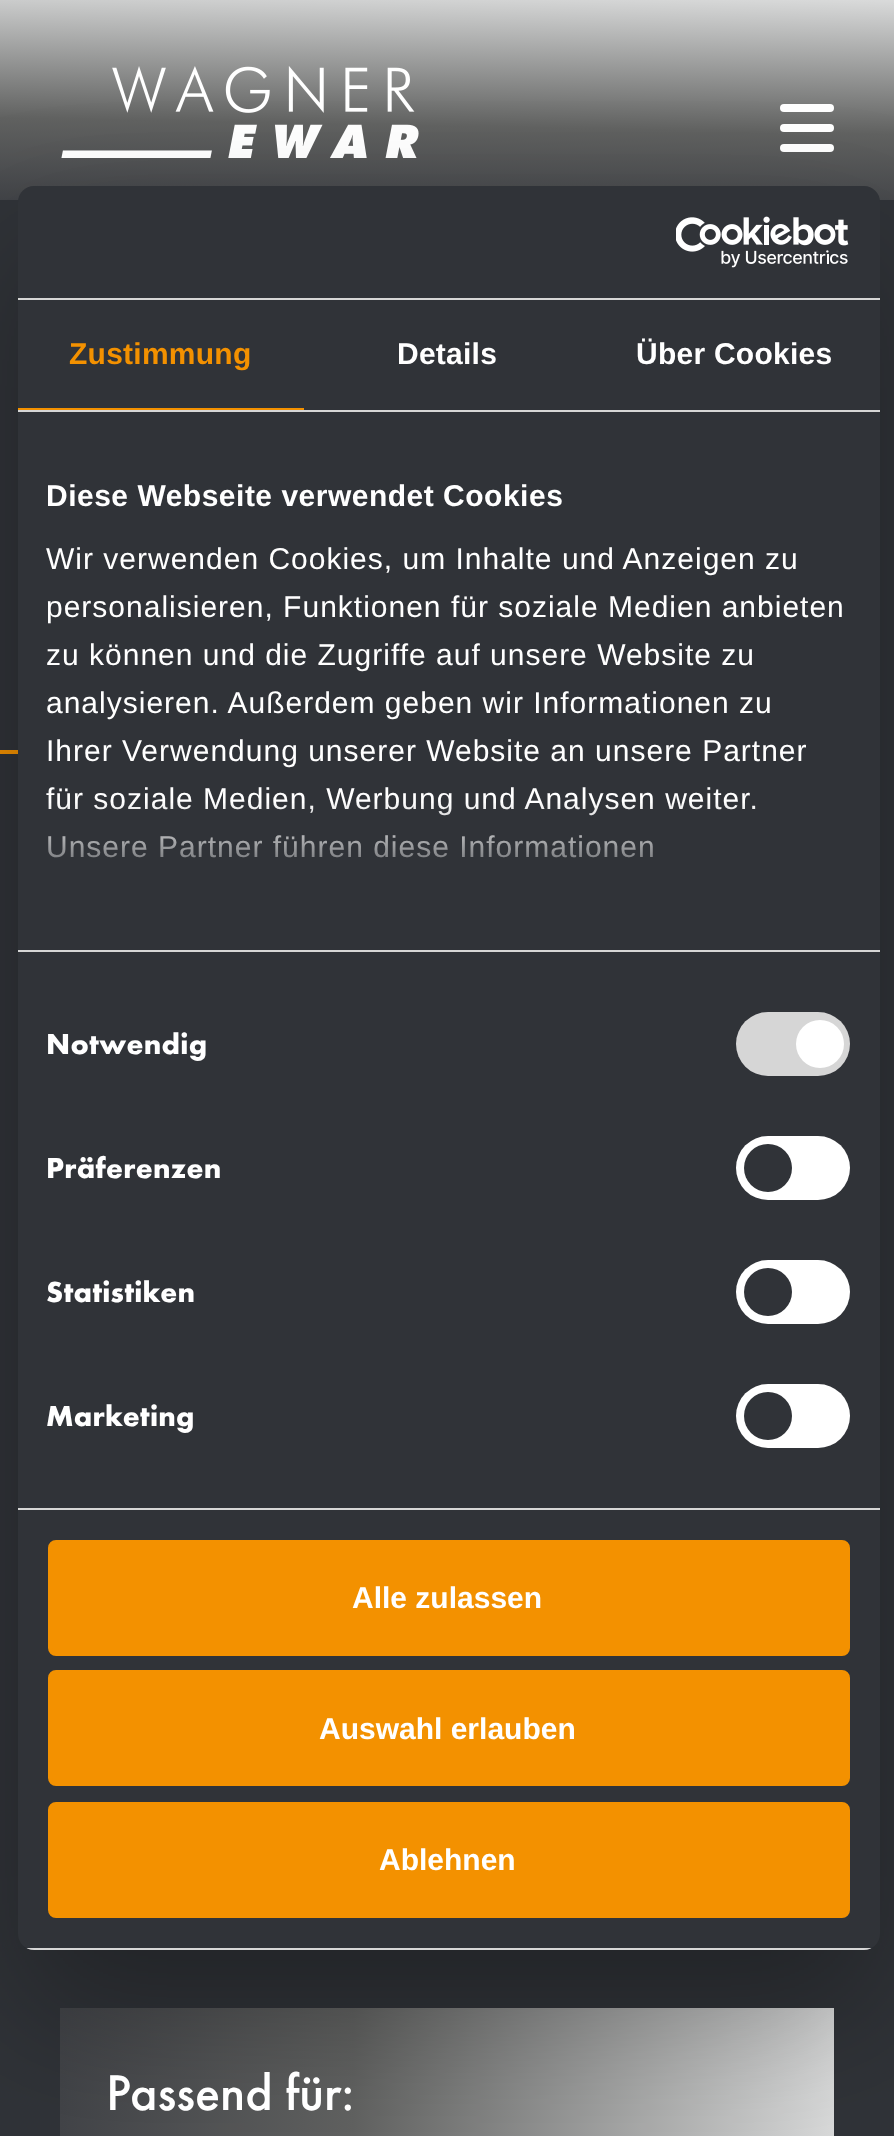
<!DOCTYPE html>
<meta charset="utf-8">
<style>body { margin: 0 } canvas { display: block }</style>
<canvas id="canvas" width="894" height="2136"></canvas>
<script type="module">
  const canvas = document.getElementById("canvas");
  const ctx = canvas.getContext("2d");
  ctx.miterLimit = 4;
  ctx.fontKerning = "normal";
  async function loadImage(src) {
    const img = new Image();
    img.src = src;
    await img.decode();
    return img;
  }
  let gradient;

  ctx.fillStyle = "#303338";
  ctx.fillRect(0, 0, 894, 2136);
  gradient = ctx.createLinearGradient(445, 208, 449, -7.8);
  gradient.addColorStop(0, "#424448");
  gradient.addColorStop(0.38, "#616261");
  gradient.addColorStop(1, "#d9dada");
  ctx.fillStyle = gradient;
  ctx.fillRect(0, 0, 894, 200);
  ctx.drawImage(await loadImage("img2.png"), 61, 66, 358, 92);
  ctx.fillStyle = "#ffffff";
  ctx.beginPath();
  ctx.roundRect(780, 104, 54, 8, 4);
  ctx.fill();
  ctx.beginPath();
  ctx.roundRect(780, 124, 54, 8, 4);
  ctx.fill();
  ctx.beginPath();
  ctx.roundRect(780, 144, 54, 8, 4);
  ctx.fill();
  ctx.fillStyle = "#f39100";
  ctx.fillRect(0, 750, 18, 4);
  gradient = ctx.createLinearGradient(60, 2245, 834, 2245);
  gradient.addColorStop(0, "#424448");
  gradient.addColorStop(0.38, "#616261");
  gradient.addColorStop(1, "#d9dada");
  ctx.fillStyle = gradient;
  ctx.fillRect(60, 2008, 774, 128);
  ctx.fillStyle = "rgba(0, 0, 0, 0.3)";
  ctx.filter = "blur(68px)";
  ctx.beginPath();
  ctx.roundRect(18, 250, 862, 1764, 16);
  ctx.fill();
  ctx.filter = "none";
  ctx.fillStyle = "#303338";
  ctx.beginPath();
  ctx.roundRect(18, 186, 862, 1764, 16);
  ctx.fill();
  ctx.fillStyle = "#d6d6d6";
  ctx.fillRect(18, 298, 862, 2);
  ctx.drawImage(await loadImage("img1.png"), 676, 216, 173, 52);
  ctx.fillRect(18, 410, 862, 2);
  ctx.fillStyle = "#f39100";
  ctx.fillRect(18, 408, 286, 2);
  ctx.letterSpacing = "0.25px";
  ctx.font = "bold 30px Liberation Sans";
  ctx.fillText("Zustimmung", 69, 364);
  ctx.fillStyle = "#ffffff";
  ctx.fillText("Details", 397, 364);
  ctx.fillText("Über Cookies", 636, 364);
  ctx.fillStyle = "#d6d6d6";
  ctx.fillRect(18, 950, 862, 2);
  ctx.letterSpacing = "0.5px";
  ctx.fillStyle = "#ffffff";
  ctx.fillText("Diese Webseite verwendet Cookies", 46, 506);
  ctx.letterSpacing = "1px";
  ctx.font = "30px Liberation Sans";
  ctx.fillText("Wir verwenden Cookies, um Inhalte und Anzeigen zu", 46, 569);
  ctx.fillText("personalisieren, Funktionen für soziale Medien anbieten", 46, 617);
  ctx.fillText("zu können und die Zugriffe auf unsere Website zu", 46, 665);
  ctx.fillText("analysieren. Außerdem geben wir Informationen zu", 46, 713);
  ctx.fillText("Ihrer Verwendung unserer Website an unsere Partner", 46, 761);
  ctx.fillText("für soziale Medien, Werbung und Analysen weiter.", 46, 809);
  ctx.fillText("Unsere Partner führen diese Informationen", 46, 857);
  gradient = ctx.createLinearGradient(435, 951, 435, 801);
  gradient.addColorStop(0, "#303338");
  gradient.addColorStop(0.5, "rgba(48, 51, 56, 0.8)");
  gradient.addColorStop(1, "rgba(48, 51, 56, 0)");
  ctx.fillStyle = gradient;
  ctx.fillRect(48, 803, 707, 55);
  ctx.fillStyle = "#d6d6d6";
  ctx.fillRect(18, 1508, 862, 2);
  ctx.letterSpacing = "0.25px";
  ctx.font = "bold 30px Futura PT";
  ctx.fillStyle = "#ffffff";
  ctx.fillText("Notwendig", 46, 1054);
  ctx.fillStyle = "#d6d6d6";
  ctx.beginPath();
  ctx.roundRect(736, 1012, 114, 64, 32);
  ctx.fill();
  ctx.fillStyle = "#ffffff";
  ctx.beginPath();
  ctx.arc(820, 1044, 24, 0, Math.PI * 2);
  ctx.fill();
  ctx.fillText("Präferenzen", 46, 1178);
  ctx.beginPath();
  ctx.roundRect(736, 1136, 114, 64, 32);
  ctx.fill();
  ctx.fillStyle = "#303338";
  ctx.beginPath();
  ctx.arc(768, 1168, 24, 0, Math.PI * 2);
  ctx.fill();
  ctx.fillStyle = "#ffffff";
  ctx.fillText("Statistiken", 46, 1302);
  ctx.beginPath();
  ctx.roundRect(736, 1260, 114, 64, 32);
  ctx.fill();
  ctx.fillStyle = "#303338";
  ctx.beginPath();
  ctx.arc(768, 1292, 24, 0, Math.PI * 2);
  ctx.fill();
  ctx.fillStyle = "#ffffff";
  ctx.fillText("Marketing", 46, 1426);
  ctx.beginPath();
  ctx.roundRect(736, 1384, 114, 64, 32);
  ctx.fill();
  ctx.fillStyle = "#303338";
  ctx.beginPath();
  ctx.arc(768, 1416, 24, 0, Math.PI * 2);
  ctx.fill();
  ctx.save();
  ctx.beginPath();
  ctx.roundRect(18, 186, 862, 1764, 16);
  ctx.clip();
  ctx.fillStyle = "#d6d6d6";
  ctx.fillRect(18, 1948, 862, 2);
  ctx.restore();
  ctx.fillStyle = "#f39100";
  ctx.beginPath();
  ctx.roundRect(50, 1542, 798, 112, 6);
  ctx.fill();
  ctx.strokeStyle = "#f39100";
  ctx.lineWidth = 4;
  ctx.stroke();
  ctx.letterSpacing = "0px";
  ctx.font = "bold 30px Liberation Sans";
  ctx.fillStyle = "#ffffff";
  ctx.fillText("Alle zulassen", 352, 1608);
  ctx.fillStyle = "#f39100";
  ctx.beginPath();
  ctx.roundRect(50, 1672, 798, 112, 6);
  ctx.fill();
  ctx.stroke();
  ctx.fillStyle = "#ffffff";
  ctx.fillText("Auswahl erlauben", 319, 1739);
  ctx.fillStyle = "#f39100";
  ctx.beginPath();
  ctx.roundRect(50, 1804, 798, 112, 6);
  ctx.fill();
  ctx.stroke();
  ctx.fillStyle = "#ffffff";
  ctx.fillText("Ablehnen", 379, 1870);
  ctx.font = "500 52px Futura PT";
  ctx.fillText("Passend für:", 106, 2110);
</script>
